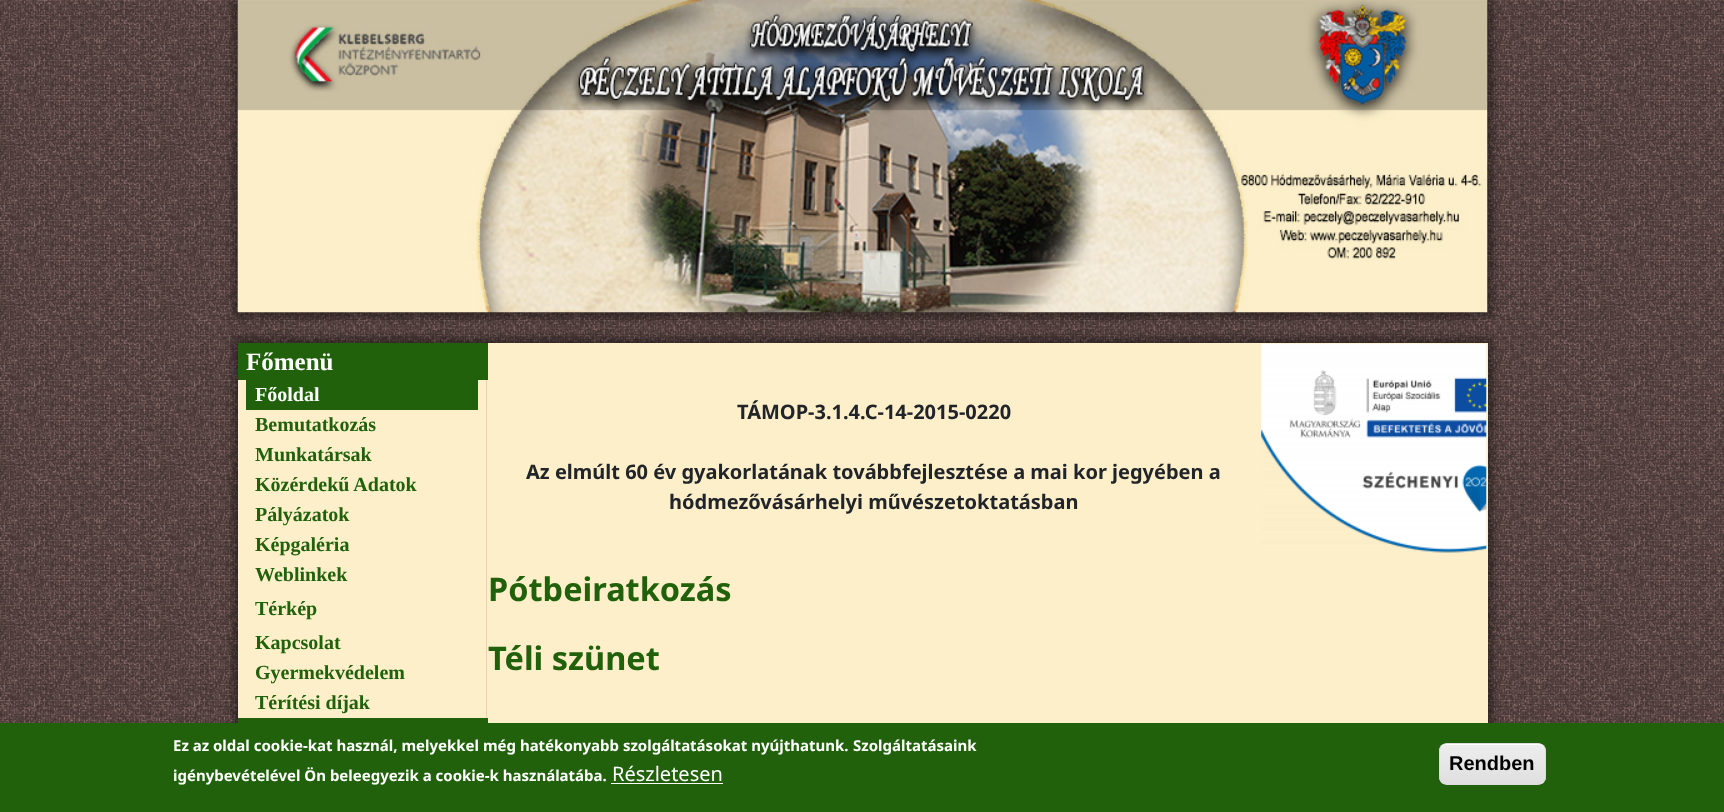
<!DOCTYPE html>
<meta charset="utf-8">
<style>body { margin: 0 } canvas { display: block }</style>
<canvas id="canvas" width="1724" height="812"></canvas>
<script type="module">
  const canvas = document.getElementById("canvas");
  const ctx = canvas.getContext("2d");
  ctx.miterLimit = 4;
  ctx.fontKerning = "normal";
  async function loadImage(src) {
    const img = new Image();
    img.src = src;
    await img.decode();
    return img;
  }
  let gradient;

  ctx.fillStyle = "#ffffff";
  ctx.fillRect(0, 0, 1724, 812);
  ctx.drawImage(await loadImage("img1.png"), 0, 0, 1724, 723);
  ctx.fillStyle = "rgba(0, 0, 0, 0.4)";
  ctx.filter = "blur(4.5px)";
  ctx.beginPath();
  ctx.rect(233, -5, 1260, 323);
  ctx.fill();
  ctx.filter = "none";
  ctx.drawImage(await loadImage("img2.png"), 237, 0, 1251, 313);
  ctx.filter = "blur(4.5px)";
  ctx.beginPath();
  ctx.rect(233, 338, 1260, 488);
  ctx.fill();
  ctx.filter = "none";
  ctx.fillStyle = "#fdefca";
  ctx.fillRect(238, 343, 1250, 380);
  ctx.fillStyle = "#ebcfb0";
  ctx.fillRect(486, 380, 1, 338);
  ctx.fillStyle = "#21610b";
  ctx.fillRect(238, 343, 250, 37);
  ctx.font = "bold 25px Liberation Serif";
  ctx.fillStyle = "#ffffff";
  ctx.fillText("Főmenü", 246, 370);
  ctx.fillStyle = "#21610b";
  ctx.fillRect(246, 380, 232, 30);
  ctx.font = "bold 20px Liberation Serif";
  ctx.fillStyle = "#ffffff";
  ctx.fillText("Főoldal", 255, 401);
  ctx.fillStyle = "#21610b";
  ctx.fillText("Bemutatkozás", 255, 431);
  ctx.fillText("Munkatársak", 255, 461);
  ctx.fillText("Közérdekű Adatok", 255, 491);
  ctx.fillText("Pályázatok", 255, 521);
  ctx.fillText("Képgaléria", 255, 551);
  ctx.fillText("Weblinkek", 255, 581);
  ctx.fillText("Térkép", 255, 615);
  ctx.fillText("Kapcsolat", 255, 649);
  ctx.fillText("Gyermekvédelem", 255, 679);
  ctx.fillText("Térítési díjak", 255, 709);
  ctx.fillRect(238, 718, 250, 5);
  ctx.font = "bold 20px Noto Sans";
  ctx.fillStyle = "#212529";
  ctx.fillText("TÁMOP-3.1.4.C-14-2015-0220", 737, 419);
  ctx.fillText("Az elmúlt 60 év gyakorlatának továbbfejlesztése a mai kor jegyében a", 526, 479);
  ctx.fillText("hódmezővásárhelyi művészetoktatásban", 669, 509);
  ctx.drawImage(await loadImage("img3.png"), 1261, 343, 226, 210);
  ctx.font = "bold 32.5px Noto Sans";
  ctx.fillStyle = "#21610b";
  ctx.fillText("Pótbeiratkozás", 488, 601);
  ctx.fillText("Téli szünet", 488, 670);
  ctx.fillRect(0, 723, 1724, 89);
  ctx.font = "bold 15px Noto Sans";
  ctx.fillStyle = "#ffffff";
  ctx.fillText("Ez az oldal cookie-kat használ, melyekkel még hatékonyabb szolgáltatásokat nyújthatunk.", 173, 751);
  ctx.fillText("Szolgáltatásaink", 853, 751);
  ctx.fillText("igénybevételével Ön beleegyezik a cookie-k használatába.", 173, 781);
  ctx.font = "20px Noto Sans";
  ctx.fillText("Részletesen", 612, 781);
  ctx.fillRect(611, 783, 112, 1);
  ctx.save();
  ctx.beginPath();
  ctx.roundRect(1439, 743, 107, 42, 8);
  ctx.clip();
  gradient = ctx.createLinearGradient(1493, 744, 1493, 784);
  gradient.addColorStop(0.05, "#ededed");
  gradient.addColorStop(1, "#dfdfdf");
  ctx.fillStyle = gradient;
  ctx.fillRect(1439, 744, 107, 40);
  ctx.restore();
  ctx.beginPath();
  ctx.moveTo(1446, 745);
  ctx.lineTo(1539, 745);
  ctx.bezierCurveTo(1542, 745, 1545, 748, 1545, 751);
  ctx.bezierCurveTo(1545, 740, 1530, 744, 1524, 744);
  ctx.lineTo(1462, 744);
  ctx.bezierCurveTo(1455, 744, 1440, 740, 1440, 751);
  ctx.bezierCurveTo(1440, 748, 1443, 745, 1446, 745);
  ctx.closePath();
  ctx.fill();
  ctx.beginPath();
  ctx.roundRect(1439.5, 743.5, 106, 41, 7.5);
  ctx.strokeStyle = "#dcdcdc";
  ctx.stroke();
  ctx.font = "bold 20px Liberation Sans";
  ctx.fillStyle = "#000000";
  ctx.fillText("Rendben", 1449, 770);
</script>
